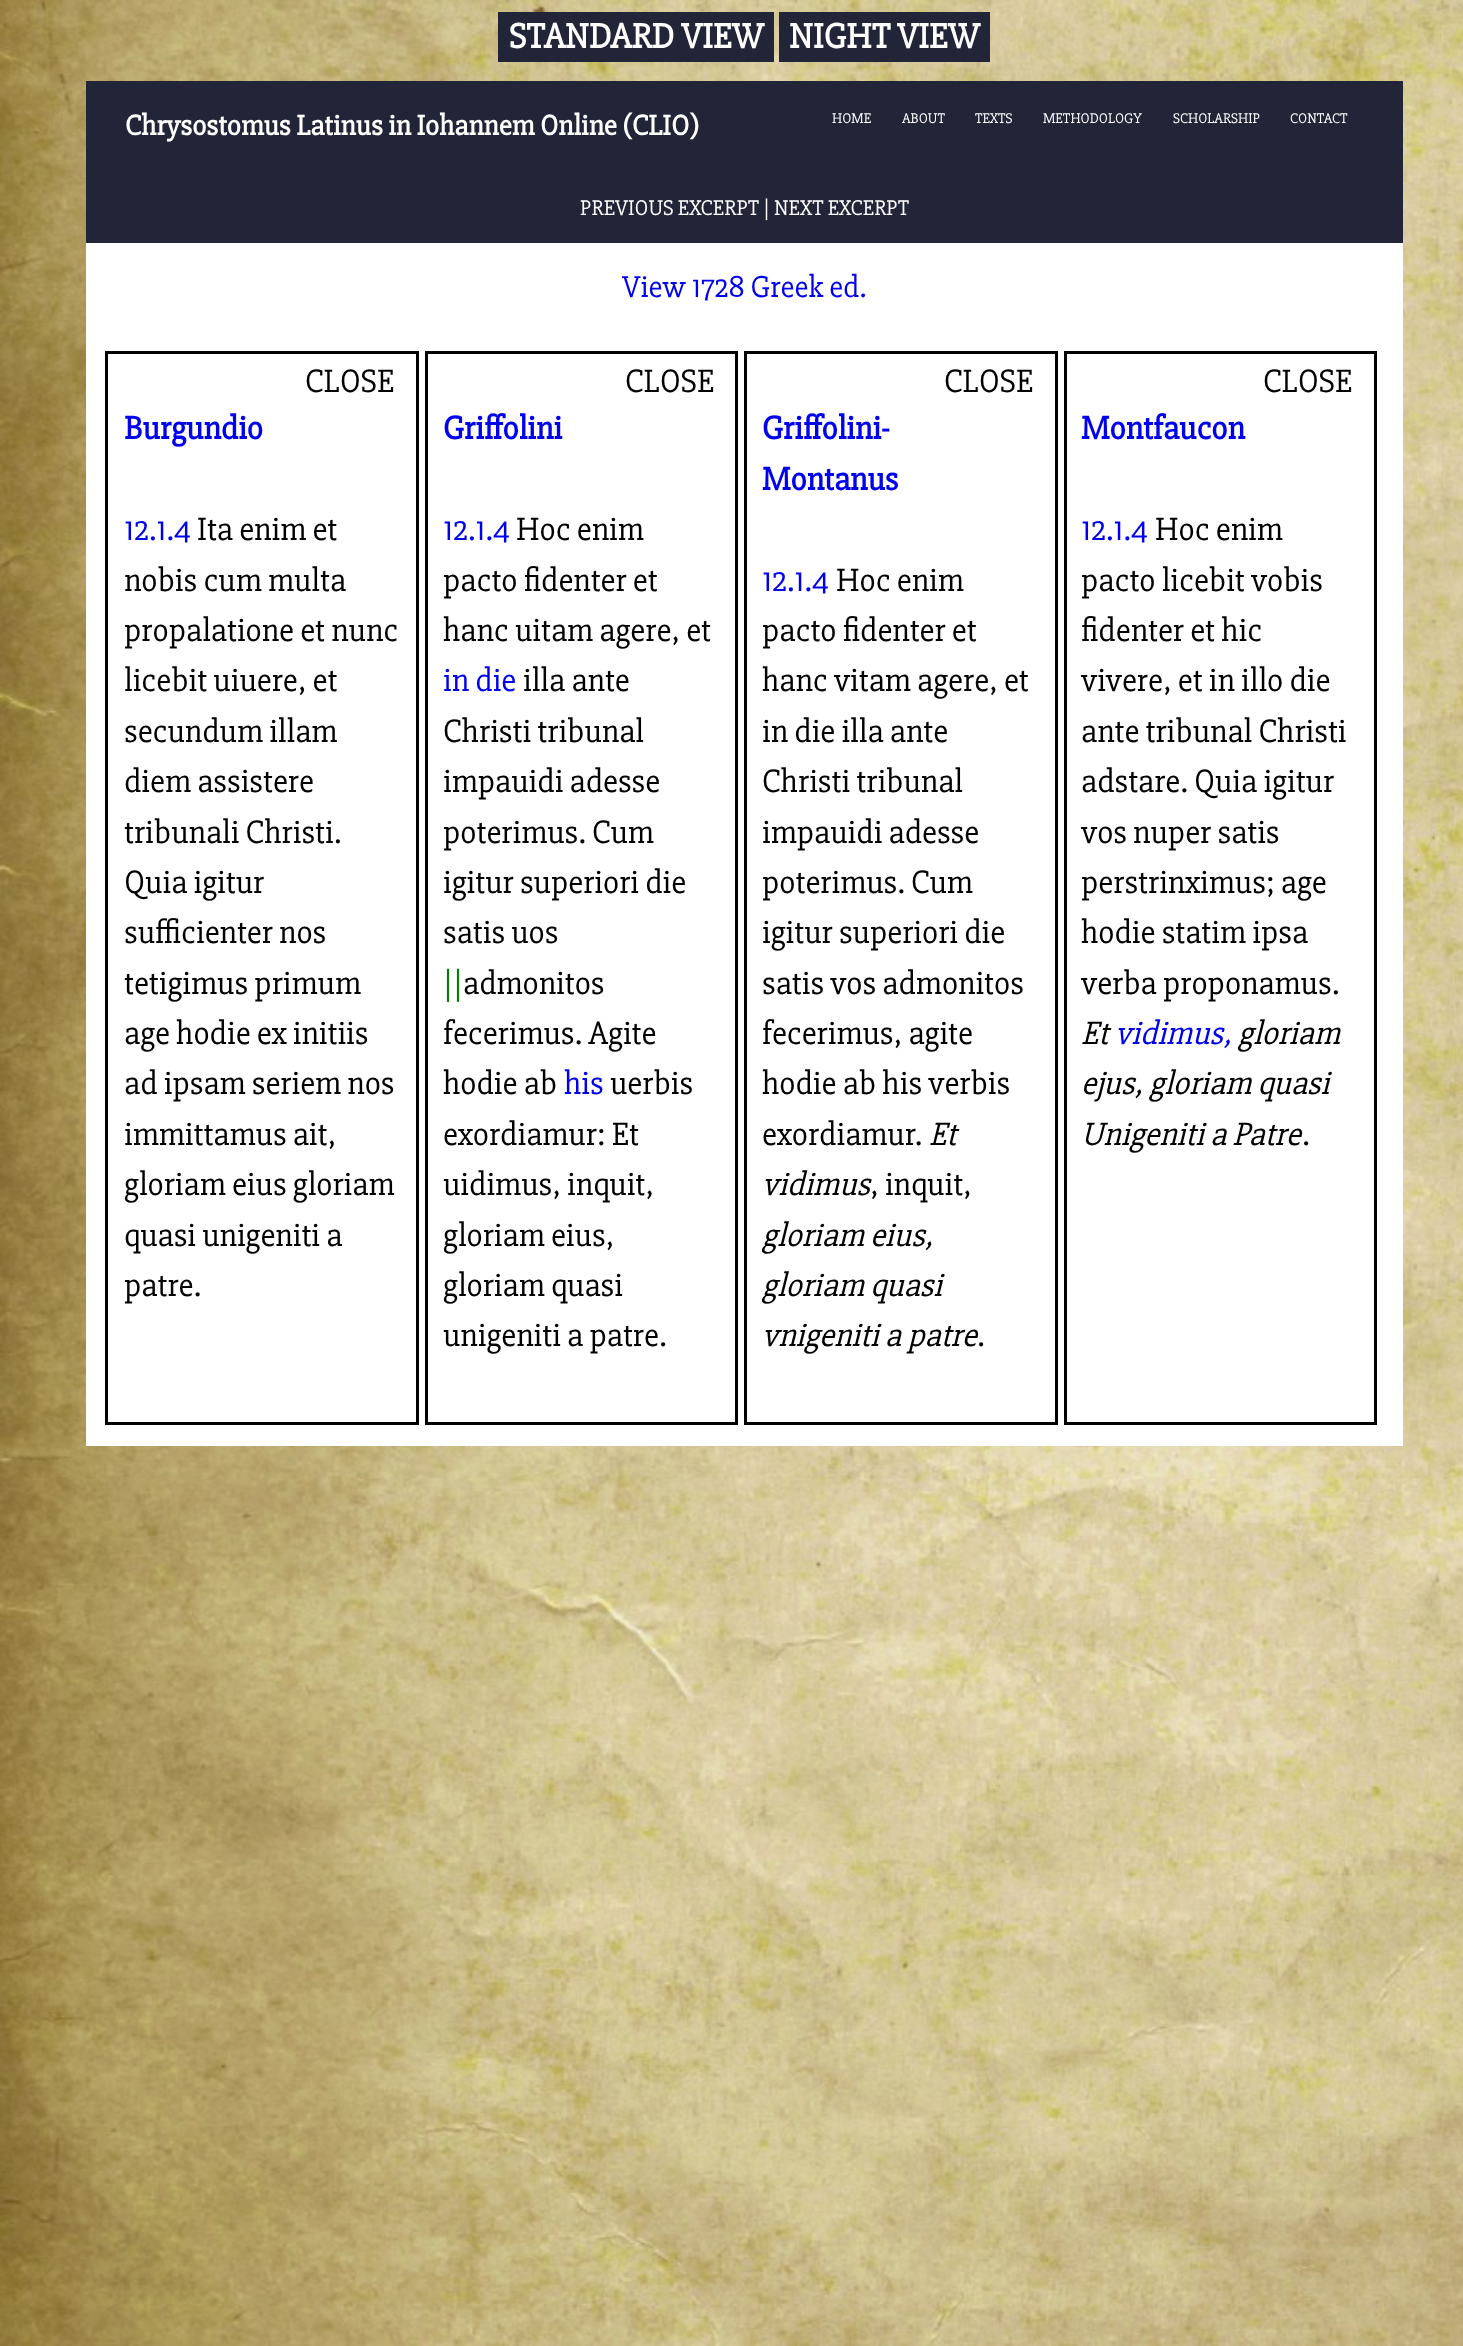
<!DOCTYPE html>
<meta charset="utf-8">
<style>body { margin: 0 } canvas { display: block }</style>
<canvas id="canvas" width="1463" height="2346"></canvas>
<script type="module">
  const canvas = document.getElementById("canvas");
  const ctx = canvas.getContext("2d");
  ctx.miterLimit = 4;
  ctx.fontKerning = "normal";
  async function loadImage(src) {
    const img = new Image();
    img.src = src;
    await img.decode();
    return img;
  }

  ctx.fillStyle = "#ffffff";
  ctx.fillRect(0, 0, 1463, 2346);
  ctx.drawImage(await loadImage("img1.png"), 0, 0, 1463, 2346);
  ctx.fillStyle = "#222438";
  ctx.fillRect(498, 12, 276, 50);
  ctx.font = "bold 36px 'Slabo 27px'";
  ctx.fillStyle = "#ffffff";
  ctx.fillText("STANDARD VIEW", 509, 48);
  ctx.fillStyle = "#222438";
  ctx.fillRect(779, 12, 211, 50);
  ctx.fillStyle = "#ffffff";
  ctx.fillText("NIGHT VIEW", 789, 48);
  ctx.fillStyle = "#222438";
  ctx.fillRect(86, 81, 1317, 162);
  ctx.font = "bold 29.25px 'Slabo 27px'";
  ctx.fillStyle = "#ffffff";
  ctx.fillText("Chrysostomus Latinus in Iohannem Online (CLIO)", 125, 135);
  ctx.font = "14.5px 'Slabo 27px'";
  ctx.fillText("HOME", 832, 123);
  ctx.fillText("ABOUT", 902, 123);
  ctx.fillText("TEXTS", 975, 123);
  ctx.fillText("METHODOLOGY", 1043, 123);
  ctx.fillText("SCHOLARSHIP", 1173, 123);
  ctx.fillText("CONTACT", 1290, 123);
  ctx.font = "22px 'Slabo 27px'";
  ctx.fillText("PREVIOUS EXCERPT | NEXT EXCERPT", 580, 215);
  ctx.fillRect(86, 243, 1317, 1203);
  ctx.font = "31.25px 'Slabo 27px'";
  ctx.fillStyle = "#0000ee";
  ctx.fillText("View 1728 Greek ed.", 622, 297);
  ctx.strokeStyle = "#000000";
  ctx.lineWidth = 3;
  ctx.strokeRect(106.5, 352.5, 311, 1071);
  ctx.font = "33.5px 'Slabo 27px'";
  ctx.fillStyle = "#000000";
  ctx.fillText("CLOSE", 305, 392);
  ctx.font = "bold 33.5px 'Slabo 27px'";
  ctx.fillStyle = "#0000ee";
  ctx.fillText("Burgundio", 124, 439);
  ctx.font = "33.5px 'Slabo 27px'";
  ctx.fillText("12.1.4", 124, 540);
  ctx.fillStyle = "#000000";
  ctx.fillText("Ita enim et", 197, 540);
  ctx.fillText("nobis cum multa", 124, 591);
  ctx.fillText("propalatione et nunc", 124, 641);
  ctx.fillText("licebit uiuere, et", 124, 691);
  ctx.fillText("secundum illam", 124, 742);
  ctx.fillText("diem assistere", 124, 792);
  ctx.fillText("tribunali Christi.", 124, 843);
  ctx.fillText("Quia igitur", 124, 893);
  ctx.fillText("sufficienter nos", 124, 943);
  ctx.fillText("tetigimus primum", 124, 994);
  ctx.fillText("age hodie ex initiis", 124, 1044);
  ctx.fillText("ad ipsam seriem nos", 124, 1094);
  ctx.fillText("immittamus ait,", 124, 1145);
  ctx.fillText("gloriam eius gloriam", 124, 1195);
  ctx.fillText("quasi unigeniti a", 124, 1246);
  ctx.fillText("patre.", 124, 1296);
  ctx.strokeRect(426.5, 352.5, 310, 1071);
  ctx.fillText("CLOSE", 625, 392);
  ctx.font = "bold 33.5px 'Slabo 27px'";
  ctx.fillStyle = "#0000ee";
  ctx.fillText("Griffolini", 443, 439);
  ctx.font = "33.5px 'Slabo 27px'";
  ctx.fillText("12.1.4", 443, 540);
  ctx.fillStyle = "#000000";
  ctx.fillText("Hoc enim", 516, 540);
  ctx.fillText("pacto fidenter et", 443, 591);
  ctx.fillText("hanc uitam agere, et", 443, 641);
  ctx.fillStyle = "#0000ee";
  ctx.fillText("in die", 443, 691);
  ctx.fillStyle = "#000000";
  ctx.fillText("illa ante", 523, 691);
  ctx.fillText("Christi tribunal", 443, 742);
  ctx.fillText("impauidi adesse", 443, 792);
  ctx.fillText("poterimus. Cum", 443, 843);
  ctx.fillText("igitur superiori die", 443, 893);
  ctx.fillText("satis uos", 443, 943);
  ctx.fillStyle = "#008000";
  ctx.fillText("||", 443, 994);
  ctx.fillStyle = "#000000";
  ctx.fillText("admonitos", 463, 994);
  ctx.fillText("fecerimus. Agite", 443, 1044);
  ctx.fillText("hodie ab", 443, 1094);
  ctx.fillStyle = "#0000ee";
  ctx.fillText("his", 564, 1094);
  ctx.fillStyle = "#000000";
  ctx.fillText("uerbis", 610, 1094);
  ctx.fillText("exordiamur: Et", 443, 1145);
  ctx.fillText("uidimus, inquit,", 443, 1195);
  ctx.fillText("gloriam eius,", 443, 1246);
  ctx.fillText("gloriam quasi", 443, 1296);
  ctx.fillText("unigeniti a patre.", 443, 1346);
  ctx.strokeRect(745.5, 352.5, 311, 1071);
  ctx.fillText("CLOSE", 944, 392);
  ctx.font = "bold 33.5px 'Slabo 27px'";
  ctx.fillStyle = "#0000ee";
  ctx.fillText("Griffolini-", 762, 439);
  ctx.fillText("Montanus", 762, 490);
  ctx.font = "33.5px 'Slabo 27px'";
  ctx.fillText("12.1.4", 762, 591);
  ctx.fillStyle = "#000000";
  ctx.fillText("Hoc enim", 836, 591);
  ctx.fillText("pacto fidenter et", 762, 641);
  ctx.fillText("hanc vitam agere, et", 762, 691);
  ctx.fillText("in die illa ante", 762, 742);
  ctx.fillText("Christi tribunal", 762, 792);
  ctx.fillText("impauidi adesse", 762, 843);
  ctx.fillText("poterimus. Cum", 762, 893);
  ctx.fillText("igitur superiori die", 762, 943);
  ctx.fillText("satis vos admonitos", 762, 994);
  ctx.fillText("fecerimus, agite", 762, 1044);
  ctx.fillText("hodie ab his verbis", 762, 1094);
  ctx.fillText("exordiamur.", 762, 1145);
  ctx.font = "italic 33.5px 'Slabo 27px'";
  ctx.fillText("Et", 929, 1145);
  ctx.fillText("vidimus", 762, 1195);
  ctx.font = "33.5px 'Slabo 27px'";
  ctx.fillText(", inquit,", 870, 1195);
  ctx.font = "italic 33.5px 'Slabo 27px'";
  ctx.fillText("gloriam eius,", 762, 1246);
  ctx.fillText("gloriam quasi", 762, 1296);
  ctx.fillText("vnigeniti a patre", 762, 1346);
  ctx.font = "33.5px 'Slabo 27px'";
  ctx.fillText(".", 977, 1346);
  ctx.strokeRect(1065.5, 352.5, 310, 1071);
  ctx.fillText("CLOSE", 1263, 392);
  ctx.font = "bold 33.5px 'Slabo 27px'";
  ctx.fillStyle = "#0000ee";
  ctx.fillText("Montfaucon", 1081, 439);
  ctx.font = "33.5px 'Slabo 27px'";
  ctx.fillText("12.1.4", 1081, 540);
  ctx.fillStyle = "#000000";
  ctx.fillText("Hoc enim", 1155, 540);
  ctx.fillText("pacto licebit vobis", 1081, 591);
  ctx.fillText("fidenter et hic", 1081, 641);
  ctx.fillText("vivere, et in illo die", 1081, 691);
  ctx.fillText("ante tribunal Christi", 1081, 742);
  ctx.fillText("adstare. Quia igitur", 1081, 792);
  ctx.fillText("vos nuper satis", 1081, 843);
  ctx.fillText("perstrinximus; age", 1081, 893);
  ctx.fillText("hodie statim ipsa", 1081, 943);
  ctx.fillText("verba proponamus.", 1081, 994);
  ctx.font = "italic 33.5px 'Slabo 27px'";
  ctx.fillText("Et", 1081, 1044);
  ctx.fillStyle = "#0000ee";
  ctx.fillText("vidimus,", 1115, 1044);
  ctx.fillStyle = "#000000";
  ctx.fillText("gloriam", 1238, 1044);
  ctx.fillText("ejus, gloriam quasi", 1081, 1094);
  ctx.fillText("Unigeniti a Patre", 1081, 1145);
  ctx.font = "33.5px 'Slabo 27px'";
  ctx.fillText(".", 1302, 1145);
</script>
